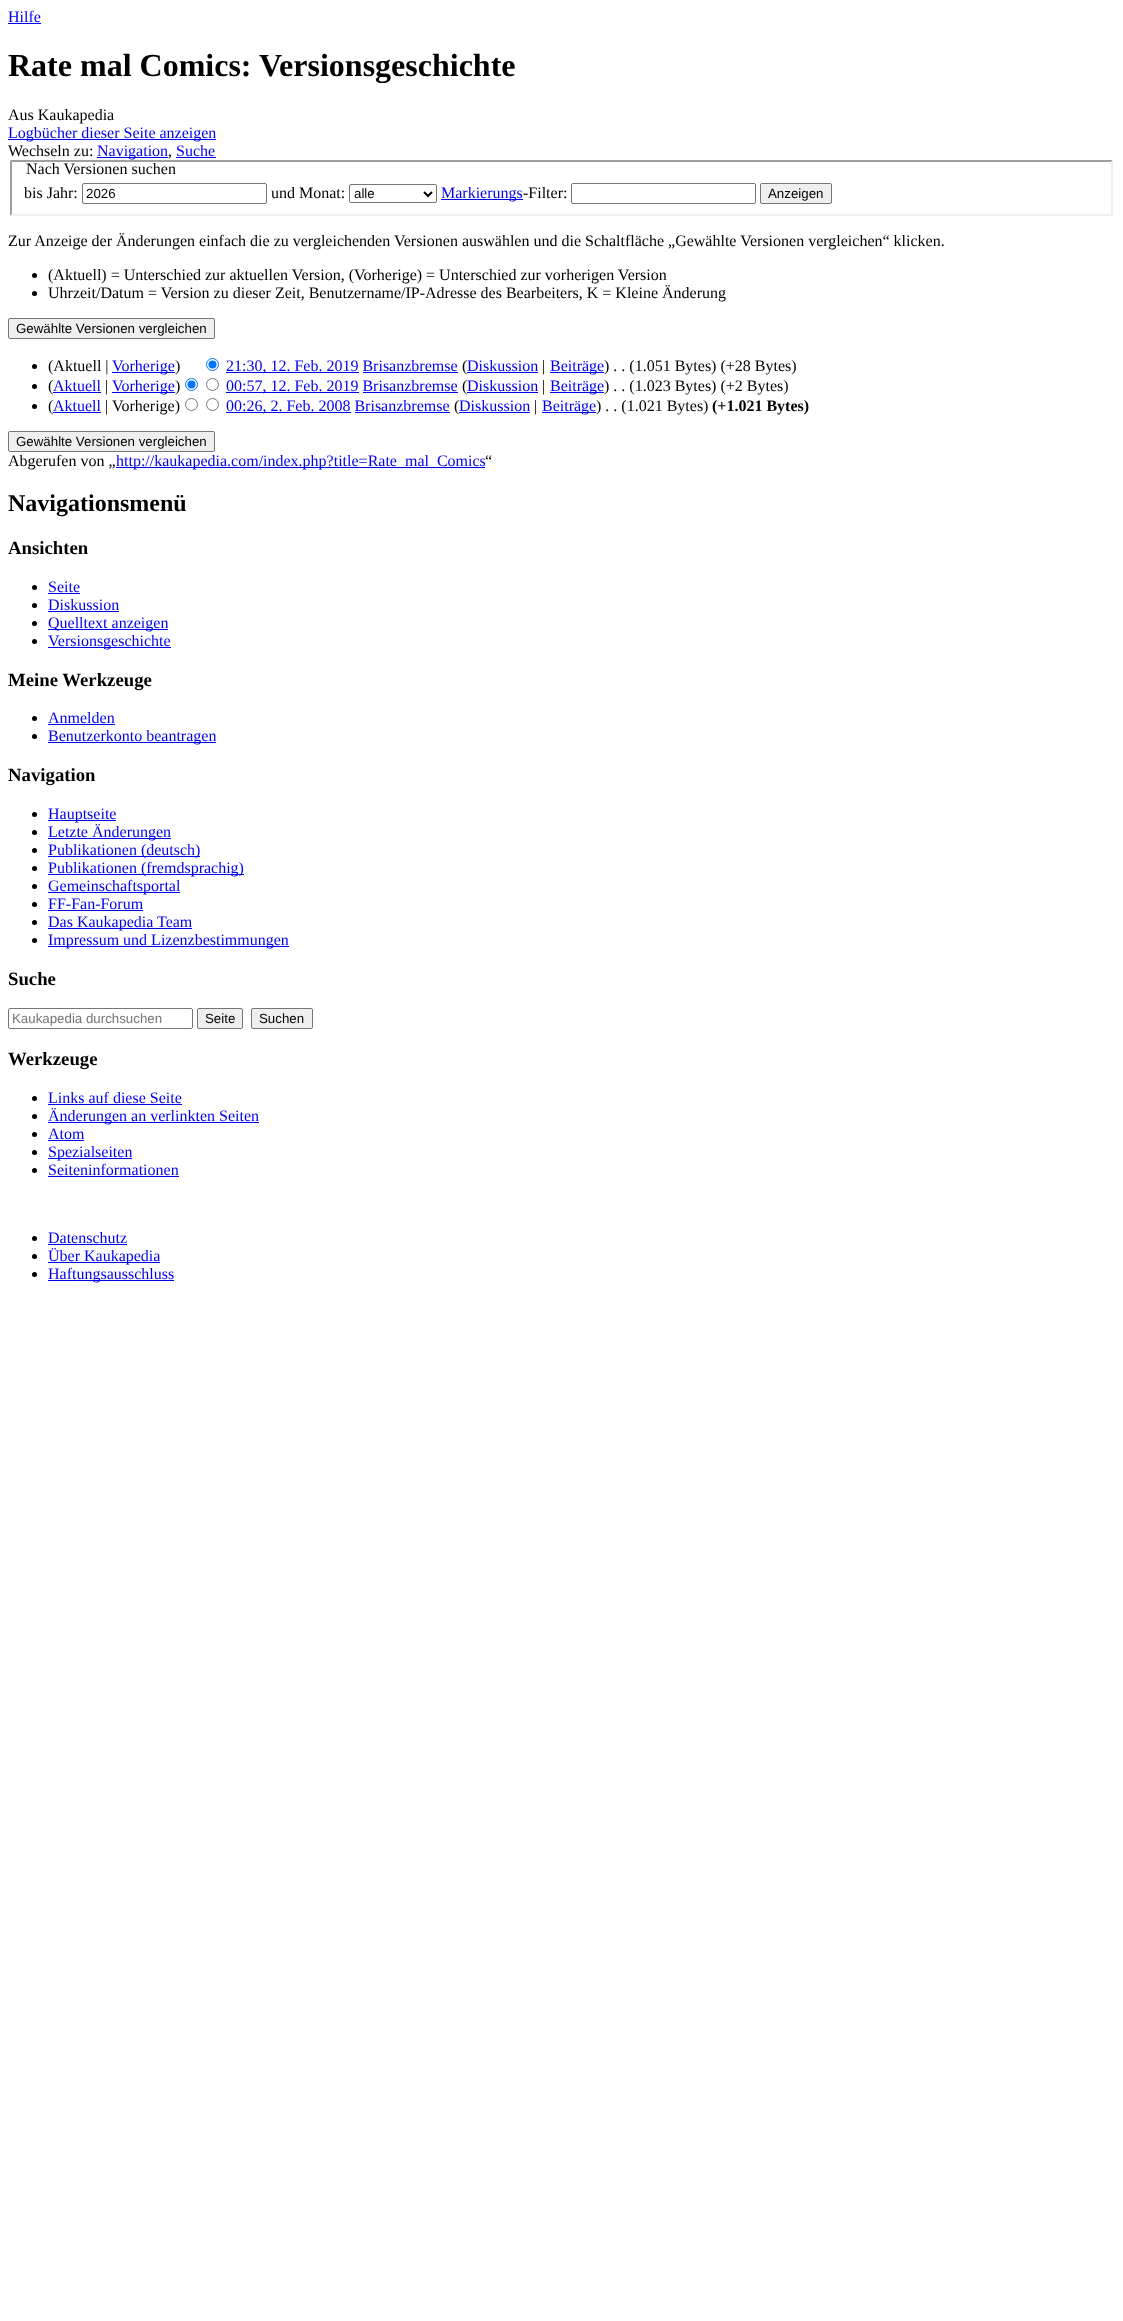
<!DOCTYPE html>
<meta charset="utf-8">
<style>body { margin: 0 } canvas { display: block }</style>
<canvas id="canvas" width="1123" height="2321"></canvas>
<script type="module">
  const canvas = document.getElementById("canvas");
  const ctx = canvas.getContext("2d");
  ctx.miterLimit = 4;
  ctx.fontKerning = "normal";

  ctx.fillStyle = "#ffffff";
  ctx.fillRect(0, 0, 1123, 2321);
  ctx.font = "16px Liberation Serif";
  ctx.fillStyle = "#0000ee";
  ctx.fillText("Hilfe", 8, 22);
  ctx.fillRect(8, 23, 33, 1);
  ctx.font = "bold 32px Liberation Serif";
  ctx.fillStyle = "#000000";
  ctx.fillText("Rate mal Comics: Versionsgeschichte", 8, 76);
  ctx.font = "16px Liberation Serif";
  ctx.fillText("Aus Kaukapedia", 8, 120);
  ctx.fillStyle = "#0000ee";
  ctx.fillRect(8, 139, 208, 1);
  ctx.fillText("Logbücher dieser Seite anzeigen", 8, 138);
  ctx.fillStyle = "#000000";
  ctx.fillText("Wechseln zu:", 8, 156);
  ctx.fillStyle = "#0000ee";
  ctx.fillRect(97, 157, 71, 1);
  ctx.fillText("Navigation", 97, 156);
  ctx.fillStyle = "#000000";
  ctx.fillText(",", 168, 156);
  ctx.fillStyle = "#0000ee";
  ctx.fillText("Suche", 176, 156);
  ctx.fillRect(176, 157, 40, 1);
  ctx.fillStyle = "#9f9f9f";
  ctx.beginPath();
  ctx.moveTo(10, 160);
  ctx.lineTo(1113, 160);
  ctx.lineTo(1111, 162);
  ctx.lineTo(12, 162);
  ctx.closePath();
  ctx.fill();
  ctx.fillStyle = "#efefef";
  ctx.beginPath();
  ctx.moveTo(1113, 160);
  ctx.lineTo(1113, 216);
  ctx.lineTo(1111, 214);
  ctx.lineTo(1111, 162);
  ctx.closePath();
  ctx.fill();
  ctx.beginPath();
  ctx.moveTo(1113, 216);
  ctx.lineTo(10, 216);
  ctx.lineTo(12, 214);
  ctx.lineTo(1111, 214);
  ctx.closePath();
  ctx.fill();
  ctx.fillStyle = "#9f9f9f";
  ctx.beginPath();
  ctx.moveTo(10, 216);
  ctx.lineTo(10, 160);
  ctx.lineTo(12, 162);
  ctx.lineTo(12, 214);
  ctx.closePath();
  ctx.fill();
  ctx.fillStyle = "#000000";
  ctx.fillText("Nach Versionen suchen", 26, 174);
  ctx.fillText("bis Jahr:", 24, 198);
  ctx.beginPath();
  ctx.roundRect(82.5, 183.5, 184, 20, 1.5);
  ctx.strokeStyle = "#767676";
  ctx.stroke();
  ctx.font = "13.3px Liberation Sans";
  ctx.fillText("2026", 86, 198);
  ctx.font = "16px Liberation Serif";
  ctx.fillText("und Monat:", 271, 198);
  ctx.beginPath();
  ctx.roundRect(349.5, 184.5, 87, 18, 1.5);
  ctx.stroke();
  ctx.beginPath();
  ctx.moveTo(424, 192);
  ctx.lineTo(428, 196);
  ctx.lineTo(432, 192);
  ctx.strokeStyle = "#000000";
  ctx.lineWidth = 2;
  ctx.stroke();
  ctx.font = "13.3px Liberation Sans";
  ctx.fillText("alle", 354, 198);
  ctx.fillStyle = "#0000ee";
  ctx.fillRect(441, 199, 82, 1);
  ctx.font = "16px Liberation Serif";
  ctx.fillText("Markierungs", 441, 198);
  ctx.fillStyle = "#000000";
  ctx.fillText("-Filter:", 523, 198);
  ctx.beginPath();
  ctx.roundRect(571.5, 183.5, 184, 20, 1.5);
  ctx.strokeStyle = "#767676";
  ctx.lineWidth = 1;
  ctx.stroke();
  ctx.fillStyle = "#efefef";
  ctx.beginPath();
  ctx.roundRect(760.5, 183.5, 71, 20, 1.5);
  ctx.fill();
  ctx.stroke();
  ctx.font = "13.3px Liberation Sans";
  ctx.fillStyle = "#000000";
  ctx.fillText("Anzeigen", 768, 198);
  ctx.font = "16px Liberation Serif";
  ctx.fillText("Zur Anzeige der Änderungen einfach die zu vergleichenden Versionen auswählen und die Schaltfläche „Gewählte Versionen vergleichen“ klicken.", 8, 246);
  ctx.beginPath();
  ctx.arc(34.5, 275.5, 2.5, 0, Math.PI * 2);
  ctx.fill();
  ctx.fillText("(Aktuell) = Unterschied zur aktuellen Version, (Vorherige) = Unterschied zur vorherigen Version", 48, 280);
  ctx.beginPath();
  ctx.arc(34.5, 293.5, 2.5, 0, Math.PI * 2);
  ctx.fill();
  ctx.fillText("Uhrzeit/Datum = Version zu dieser Zeit, Benutzername/IP-Adresse des Bearbeiters, K = Kleine Änderung", 48, 298);
  ctx.fillStyle = "#efefef";
  ctx.beginPath();
  ctx.roundRect(8.5, 318.5, 206, 20, 1.5);
  ctx.fill();
  ctx.stroke();
  ctx.font = "13.3px Liberation Sans";
  ctx.fillStyle = "#000000";
  ctx.fillText("Gewählte Versionen vergleichen", 16, 333);
  ctx.beginPath();
  ctx.arc(34.5, 366.5, 2.5, 0, Math.PI * 2);
  ctx.fill();
  ctx.font = "16px Liberation Serif";
  ctx.fillText("(Aktuell |", 48, 371);
  ctx.fillStyle = "#0000ee";
  ctx.fillRect(112, 372, 63, 1);
  ctx.fillText("Vorherige", 112, 371);
  ctx.fillStyle = "#000000";
  ctx.fillText(")", 175, 371);
  ctx.beginPath();
  ctx.arc(212.5, 364.5, 6, 0, Math.PI * 2);
  ctx.strokeStyle = "#0075ff";
  ctx.stroke();
  ctx.fillStyle = "#0075ff";
  ctx.beginPath();
  ctx.arc(212.5, 364.5, 4, 0, Math.PI * 2);
  ctx.fill();
  ctx.fillStyle = "#0000ee";
  ctx.fillRect(226, 372, 133, 1);
  ctx.fillText("21:30, 12. Feb. 2019 Brisanzbremse", 226, 371);
  ctx.fillStyle = "#000000";
  ctx.fillText("(", 462, 371);
  ctx.fillStyle = "#0000ee";
  ctx.fillRect(363, 372, 95, 1);
  ctx.fillRect(467, 372, 71, 1);
  ctx.fillText("Diskussion", 467, 371);
  ctx.fillStyle = "#000000";
  ctx.fillText("|", 542, 371);
  ctx.fillStyle = "#0000ee";
  ctx.fillRect(550, 372, 54, 1);
  ctx.fillText("Beiträge", 550, 371);
  ctx.fillStyle = "#000000";
  ctx.fillText(") . . (1.051 Bytes) (+28 Bytes)", 604, 371);
  ctx.beginPath();
  ctx.arc(34.5, 386.5, 2.5, 0, Math.PI * 2);
  ctx.fill();
  ctx.fillText("(", 48, 391);
  ctx.fillStyle = "#0000ee";
  ctx.fillRect(53, 392, 48, 1);
  ctx.fillText("Aktuell", 53, 391);
  ctx.fillStyle = "#000000";
  ctx.fillText("|", 105, 391);
  ctx.fillStyle = "#0000ee";
  ctx.fillRect(112, 392, 63, 1);
  ctx.fillText("Vorherige", 112, 391);
  ctx.fillStyle = "#000000";
  ctx.fillText(")", 175, 391);
  ctx.beginPath();
  ctx.arc(191.5, 384.5, 6, 0, Math.PI * 2);
  ctx.stroke();
  ctx.fillStyle = "#0075ff";
  ctx.beginPath();
  ctx.arc(191.5, 384.5, 4, 0, Math.PI * 2);
  ctx.fill();
  ctx.beginPath();
  ctx.arc(212.5, 384.5, 6, 0, Math.PI * 2);
  ctx.strokeStyle = "#767676";
  ctx.stroke();
  ctx.fillStyle = "#0000ee";
  ctx.fillRect(226, 392, 133, 1);
  ctx.fillText("00:57, 12. Feb. 2019 Brisanzbremse", 226, 391);
  ctx.fillStyle = "#000000";
  ctx.fillText("(", 462, 391);
  ctx.fillStyle = "#0000ee";
  ctx.fillRect(363, 392, 95, 1);
  ctx.fillRect(467, 392, 71, 1);
  ctx.fillText("Diskussion", 467, 391);
  ctx.fillStyle = "#000000";
  ctx.fillText("|", 542, 391);
  ctx.fillStyle = "#0000ee";
  ctx.fillRect(550, 392, 54, 1);
  ctx.fillText("Beiträge", 550, 391);
  ctx.fillStyle = "#000000";
  ctx.fillText(") . . (1.023 Bytes) (+2 Bytes)", 604, 391);
  ctx.beginPath();
  ctx.arc(34.5, 406.5, 2.5, 0, Math.PI * 2);
  ctx.fill();
  ctx.fillText("(", 48, 411);
  ctx.fillStyle = "#0000ee";
  ctx.fillRect(53, 412, 48, 1);
  ctx.fillText("Aktuell", 53, 411);
  ctx.fillStyle = "#000000";
  ctx.fillText("| Vorherige)", 105, 411);
  ctx.beginPath();
  ctx.arc(191.5, 404.5, 6, 0, Math.PI * 2);
  ctx.stroke();
  ctx.beginPath();
  ctx.arc(212.5, 404.5, 6, 0, Math.PI * 2);
  ctx.stroke();
  ctx.fillStyle = "#0000ee";
  ctx.fillRect(226, 412, 125, 1);
  ctx.fillText("00:26, 2. Feb. 2008 Brisanzbremse", 226, 411);
  ctx.fillStyle = "#000000";
  ctx.fillText("(", 454, 411);
  ctx.fillStyle = "#0000ee";
  ctx.fillRect(355, 412, 95, 1);
  ctx.fillRect(459, 412, 71, 1);
  ctx.fillText("Diskussion", 459, 411);
  ctx.fillStyle = "#000000";
  ctx.fillText("|", 534, 411);
  ctx.fillStyle = "#0000ee";
  ctx.fillRect(542, 412, 54, 1);
  ctx.fillText("Beiträge", 542, 411);
  ctx.fillStyle = "#000000";
  ctx.fillText(") . . (1.021 Bytes)", 596, 411);
  ctx.font = "bold 16px Liberation Serif";
  ctx.fillText("(+1.021 Bytes)", 712, 411);
  ctx.fillStyle = "#efefef";
  ctx.beginPath();
  ctx.roundRect(8.5, 431.5, 206, 20, 1.5);
  ctx.fill();
  ctx.stroke();
  ctx.font = "13.3px Liberation Sans";
  ctx.fillStyle = "#000000";
  ctx.fillText("Gewählte Versionen vergleichen", 16, 446);
  ctx.font = "16px Liberation Serif";
  ctx.fillText("Abgerufen von „", 8, 466);
  ctx.fillStyle = "#0000ee";
  ctx.fillRect(116, 467, 369, 1);
  ctx.fillText("http://kaukapedia.com/index.php?title=Rate_mal_Comics", 116, 466);
  ctx.fillStyle = "#000000";
  ctx.fillText("“", 485, 466);
  ctx.font = "bold 24px Liberation Serif";
  ctx.fillText("Navigationsmenü", 8, 511);
  ctx.font = "bold 18.75px Liberation Serif";
  ctx.fillText("Ansichten", 8, 554);
  ctx.beginPath();
  ctx.arc(34.5, 587.5, 2.5, 0, Math.PI * 2);
  ctx.fill();
  ctx.font = "16px Liberation Serif";
  ctx.fillStyle = "#0000ee";
  ctx.fillText("Seite", 48, 592);
  ctx.fillRect(48, 593, 32, 1);
  ctx.fillStyle = "#000000";
  ctx.beginPath();
  ctx.arc(34.5, 605.5, 2.5, 0, Math.PI * 2);
  ctx.fill();
  ctx.fillStyle = "#0000ee";
  ctx.fillText("Diskussion", 48, 610);
  ctx.fillRect(48, 611, 71, 1);
  ctx.fillStyle = "#000000";
  ctx.beginPath();
  ctx.arc(34.5, 623.5, 2.5, 0, Math.PI * 2);
  ctx.fill();
  ctx.fillStyle = "#0000ee";
  ctx.fillRect(48, 629, 120, 1);
  ctx.fillText("Quelltext anzeigen", 48, 628);
  ctx.fillStyle = "#000000";
  ctx.beginPath();
  ctx.arc(34.5, 641.5, 2.5, 0, Math.PI * 2);
  ctx.fill();
  ctx.fillStyle = "#0000ee";
  ctx.fillRect(48, 647, 123, 1);
  ctx.fillText("Versionsgeschichte", 48, 646);
  ctx.font = "bold 18.75px Liberation Serif";
  ctx.fillStyle = "#000000";
  ctx.fillText("Meine Werkzeuge", 8, 686);
  ctx.beginPath();
  ctx.arc(34.5, 718.5, 2.5, 0, Math.PI * 2);
  ctx.fill();
  ctx.font = "16px Liberation Serif";
  ctx.fillStyle = "#0000ee";
  ctx.fillText("Anmelden", 48, 723);
  ctx.fillRect(48, 724, 67, 1);
  ctx.fillStyle = "#000000";
  ctx.beginPath();
  ctx.arc(34.5, 736.5, 2.5, 0, Math.PI * 2);
  ctx.fill();
  ctx.fillStyle = "#0000ee";
  ctx.fillRect(48, 742, 168, 1);
  ctx.fillText("Benutzerkonto beantragen", 48, 741);
  ctx.font = "bold 18.75px Liberation Serif";
  ctx.fillStyle = "#000000";
  ctx.fillText("Navigation", 8, 781);
  ctx.beginPath();
  ctx.arc(34.5, 814.5, 2.5, 0, Math.PI * 2);
  ctx.fill();
  ctx.fillStyle = "#0000ee";
  ctx.fillRect(48, 820, 68, 1);
  ctx.font = "16px Liberation Serif";
  ctx.fillText("Hauptseite", 48, 819);
  ctx.fillStyle = "#000000";
  ctx.beginPath();
  ctx.arc(34.5, 832.5, 2.5, 0, Math.PI * 2);
  ctx.fill();
  ctx.fillStyle = "#0000ee";
  ctx.fillRect(48, 838, 123, 1);
  ctx.fillText("Letzte Änderungen", 48, 837);
  ctx.fillStyle = "#000000";
  ctx.beginPath();
  ctx.arc(34.5, 850.5, 2.5, 0, Math.PI * 2);
  ctx.fill();
  ctx.fillStyle = "#0000ee";
  ctx.fillRect(48, 856, 152, 1);
  ctx.fillText("Publikationen (deutsch)", 48, 855);
  ctx.fillStyle = "#000000";
  ctx.beginPath();
  ctx.arc(34.5, 868.5, 2.5, 0, Math.PI * 2);
  ctx.fill();
  ctx.fillStyle = "#0000ee";
  ctx.fillRect(48, 874, 196, 1);
  ctx.fillText("Publikationen (fremdsprachig)", 48, 873);
  ctx.fillStyle = "#000000";
  ctx.beginPath();
  ctx.arc(34.5, 886.5, 2.5, 0, Math.PI * 2);
  ctx.fill();
  ctx.fillStyle = "#0000ee";
  ctx.fillRect(48, 892, 132, 1);
  ctx.fillText("Gemeinschaftsportal", 48, 891);
  ctx.fillStyle = "#000000";
  ctx.beginPath();
  ctx.arc(34.5, 904.5, 2.5, 0, Math.PI * 2);
  ctx.fill();
  ctx.fillStyle = "#0000ee";
  ctx.fillText("FF-Fan-Forum", 48, 909);
  ctx.fillRect(48, 910, 95, 1);
  ctx.fillStyle = "#000000";
  ctx.beginPath();
  ctx.arc(34.5, 922.5, 2.5, 0, Math.PI * 2);
  ctx.fill();
  ctx.fillStyle = "#0000ee";
  ctx.fillRect(48, 928, 144, 1);
  ctx.fillText("Das Kaukapedia Team", 48, 927);
  ctx.fillStyle = "#000000";
  ctx.beginPath();
  ctx.arc(34.5, 940.5, 2.5, 0, Math.PI * 2);
  ctx.fill();
  ctx.fillStyle = "#0000ee";
  ctx.fillRect(48, 946, 241, 1);
  ctx.fillText("Impressum und Lizenzbestimmungen", 48, 945);
  ctx.font = "bold 18.75px Liberation Serif";
  ctx.fillStyle = "#000000";
  ctx.fillText("Suche", 8, 985);
  ctx.beginPath();
  ctx.roundRect(8.5, 1008.5, 184, 20, 1.5);
  ctx.stroke();
  ctx.font = "13.3px Liberation Sans";
  ctx.fillStyle = "#757575";
  ctx.fillText("Kaukapedia durchsuchen", 12, 1023);
  ctx.fillStyle = "#efefef";
  ctx.beginPath();
  ctx.roundRect(197.5, 1008.5, 45, 20, 1.5);
  ctx.fill();
  ctx.stroke();
  ctx.fillStyle = "#000000";
  ctx.fillText("Seite", 205, 1023);
  ctx.fillStyle = "#efefef";
  ctx.beginPath();
  ctx.roundRect(251.5, 1008.5, 61, 20, 1.5);
  ctx.fill();
  ctx.stroke();
  ctx.fillStyle = "#000000";
  ctx.fillText("Suchen", 259, 1023);
  ctx.font = "bold 18.75px Liberation Serif";
  ctx.fillText("Werkzeuge", 8, 1065);
  ctx.beginPath();
  ctx.arc(34.5, 1098.5, 2.5, 0, Math.PI * 2);
  ctx.fill();
  ctx.font = "16px Liberation Serif";
  ctx.fillStyle = "#0000ee";
  ctx.fillText("Links auf diese Seite", 48, 1103);
  ctx.fillRect(48, 1104, 134, 1);
  ctx.fillStyle = "#000000";
  ctx.beginPath();
  ctx.arc(34.5, 1116.5, 2.5, 0, Math.PI * 2);
  ctx.fill();
  ctx.fillStyle = "#0000ee";
  ctx.fillRect(48, 1122, 211, 1);
  ctx.fillText("Änderungen an verlinkten Seiten", 48, 1121);
  ctx.fillStyle = "#000000";
  ctx.beginPath();
  ctx.arc(34.5, 1134.5, 2.5, 0, Math.PI * 2);
  ctx.fill();
  ctx.fillStyle = "#0000ee";
  ctx.fillText("Atom", 48, 1139);
  ctx.fillRect(48, 1140, 36, 1);
  ctx.fillStyle = "#000000";
  ctx.beginPath();
  ctx.arc(34.5, 1152.5, 2.5, 0, Math.PI * 2);
  ctx.fill();
  ctx.fillStyle = "#0000ee";
  ctx.fillRect(48, 1158, 84, 1);
  ctx.fillText("Spezialseiten", 48, 1157);
  ctx.fillStyle = "#000000";
  ctx.beginPath();
  ctx.arc(34.5, 1170.5, 2.5, 0, Math.PI * 2);
  ctx.fill();
  ctx.fillStyle = "#0000ee";
  ctx.fillText("Seiteninformationen", 48, 1175);
  ctx.fillRect(48, 1176, 131, 1);
  ctx.fillStyle = "#000000";
  ctx.beginPath();
  ctx.arc(34.5, 1238.5, 2.5, 0, Math.PI * 2);
  ctx.fill();
  ctx.fillStyle = "#0000ee";
  ctx.fillText("Datenschutz", 48, 1243);
  ctx.fillRect(48, 1244, 79, 1);
  ctx.fillStyle = "#000000";
  ctx.beginPath();
  ctx.arc(34.5, 1256.5, 2.5, 0, Math.PI * 2);
  ctx.fill();
  ctx.fillStyle = "#0000ee";
  ctx.fillRect(48, 1262, 112, 1);
  ctx.fillText("Über Kaukapedia", 48, 1261);
  ctx.fillStyle = "#000000";
  ctx.beginPath();
  ctx.arc(34.5, 1274.5, 2.5, 0, Math.PI * 2);
  ctx.fill();
  ctx.fillStyle = "#0000ee";
  ctx.fillRect(48, 1280, 126, 1);
  ctx.fillText("Haftungsausschluss", 48, 1279);
</script>
